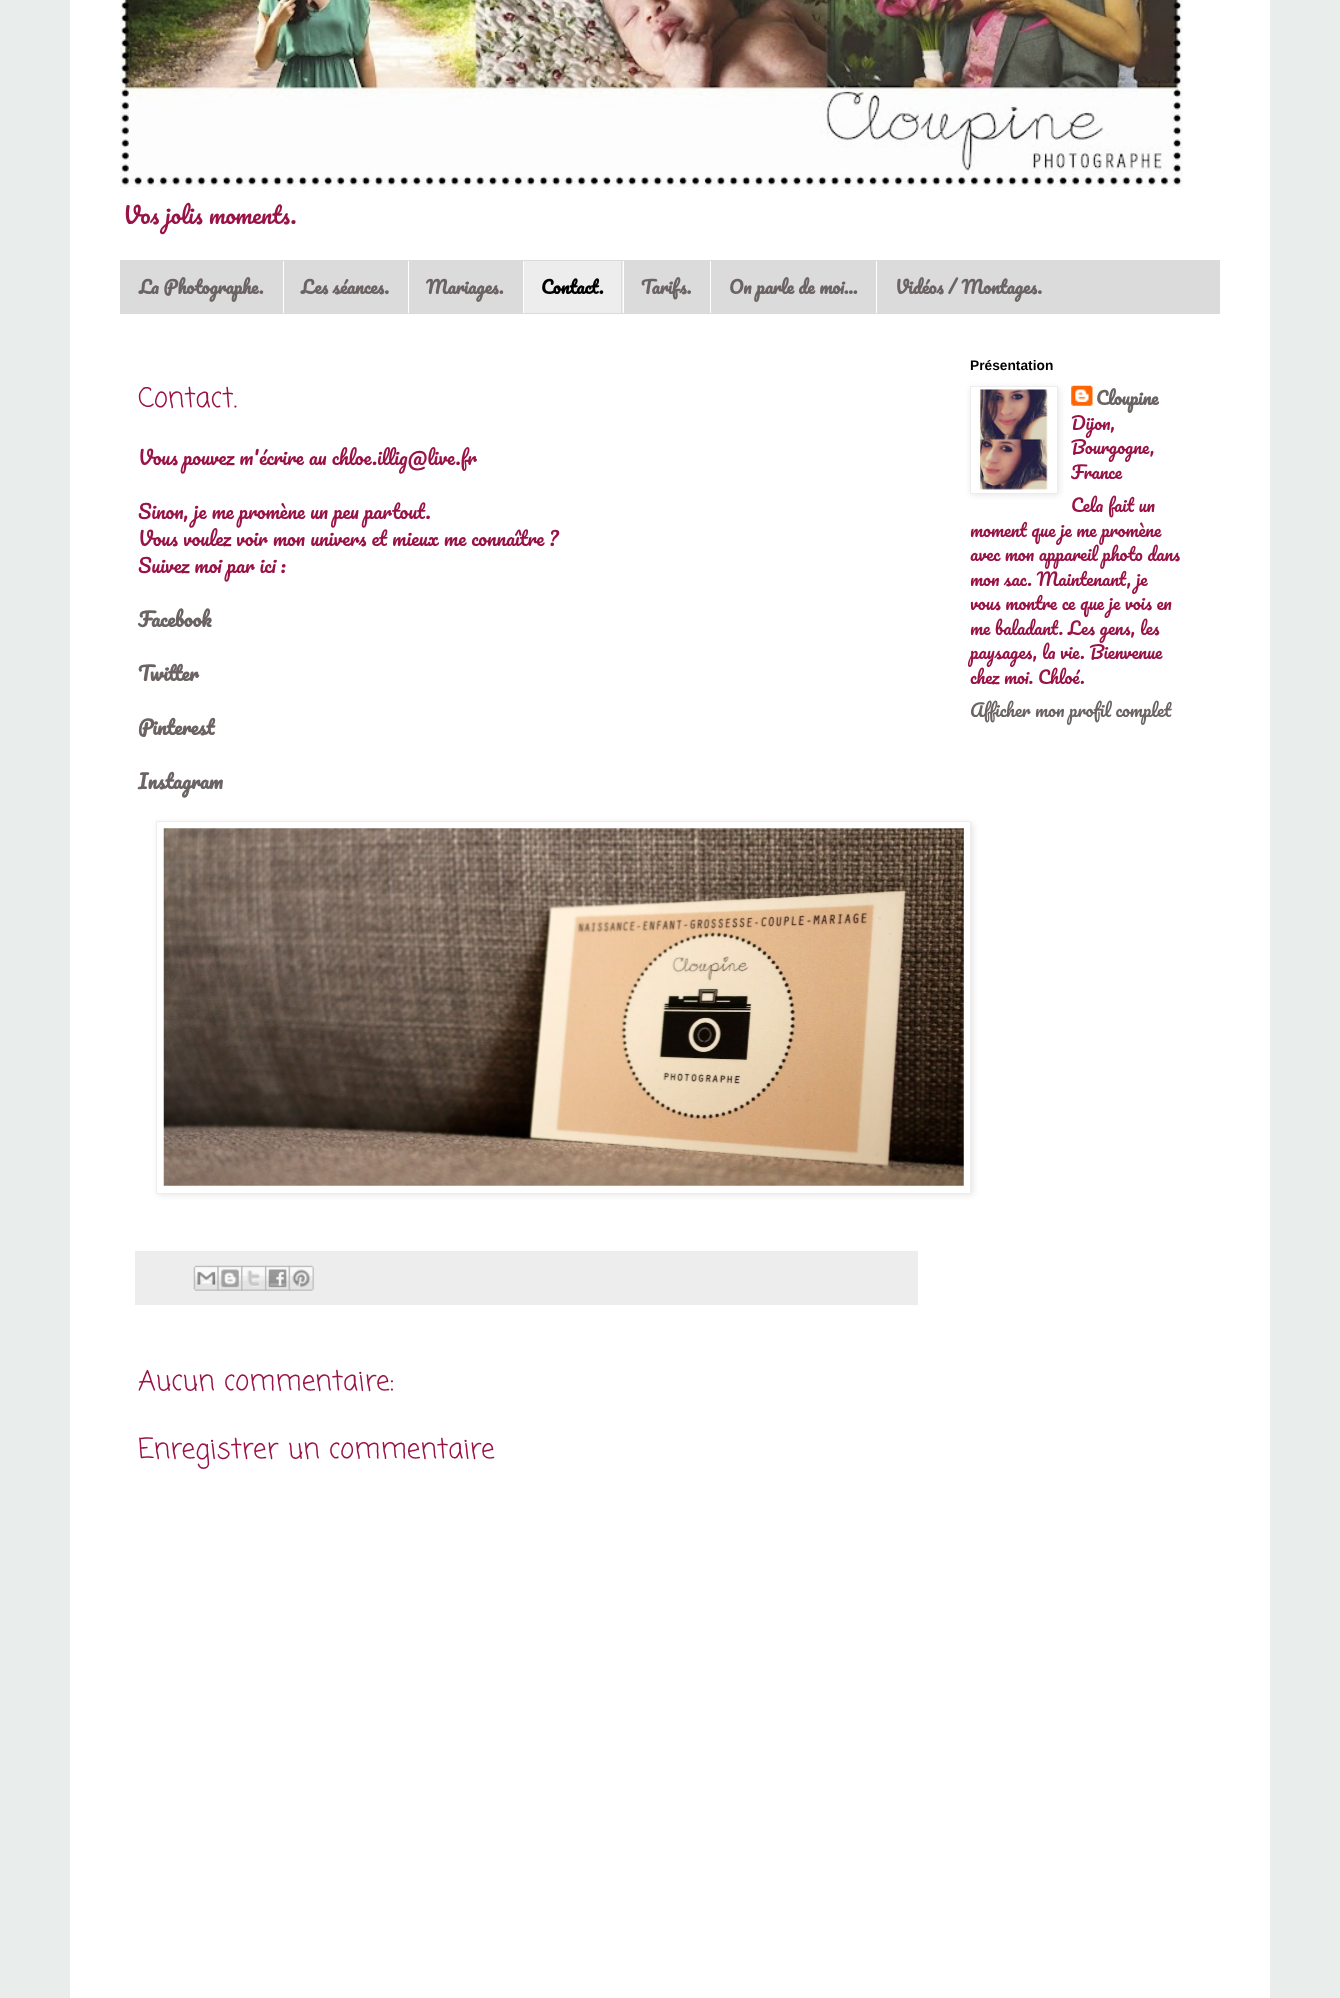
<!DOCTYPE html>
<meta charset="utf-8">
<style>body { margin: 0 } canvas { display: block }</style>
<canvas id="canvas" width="1340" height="1998"></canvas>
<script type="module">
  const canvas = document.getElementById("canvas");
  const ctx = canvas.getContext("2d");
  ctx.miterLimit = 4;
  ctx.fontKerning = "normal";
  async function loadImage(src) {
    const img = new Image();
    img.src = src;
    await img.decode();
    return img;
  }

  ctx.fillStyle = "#e9edec";
  ctx.fillRect(0, 0, 1340, 1998);
  ctx.fillStyle = "#ffffff";
  ctx.fillRect(70, 0, 1200, 1998);
  ctx.drawImage(await loadImage("img1.png"), 120, 0, 1063, 187);
  ctx.font = "22.5px Pacifico";
  ctx.fillStyle = "#991347";
  ctx.fillText("Vos jolis moments.", 123, 224);
  ctx.fillStyle = "#dbdbdb";
  ctx.fillRect(120, 260, 1100, 54);
  ctx.font = "bold 17.5px Pacifico";
  ctx.fillStyle = "#6c6464";
  ctx.fillText("La Photographe.", 139, 294);
  ctx.fillStyle = "#ffffff";
  ctx.fillRect(283, 261, 1, 52);
  ctx.fillStyle = "#6c6464";
  ctx.fillText("Les séances.", 301, 294);
  ctx.fillStyle = "#ffffff";
  ctx.fillRect(408, 261, 1, 52);
  ctx.fillStyle = "#6c6464";
  ctx.fillText("Mariages.", 426, 294);
  ctx.fillStyle = "#ededed";
  ctx.fillRect(524, 261, 99, 52);
  ctx.fillStyle = "#dbdbdb";
  ctx.fillRect(621, 261, 1, 52);
  ctx.fillStyle = "#ffffff";
  ctx.fillRect(523, 261, 1, 52);
  ctx.fillStyle = "#000000";
  ctx.fillText("Contact.", 541, 294);
  ctx.fillStyle = "#ffffff";
  ctx.fillRect(623, 261, 1, 52);
  ctx.fillStyle = "#6c6464";
  ctx.fillText("Tarifs.", 641, 294);
  ctx.fillStyle = "#ffffff";
  ctx.fillRect(710, 261, 1, 52);
  ctx.fillStyle = "#6c6464";
  ctx.fillText("On parle de moi...", 729, 294);
  ctx.fillStyle = "#ffffff";
  ctx.fillRect(876, 261, 1, 52);
  ctx.fillStyle = "#6c6464";
  ctx.fillText("Vidéos / Montages.", 895, 294);
  ctx.font = "27.5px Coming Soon";
  ctx.fillStyle = "#991347";
  ctx.fillText("Contact.", 138, 407);
  ctx.font = "19.25px Pacifico";
  ctx.fillText("Vous pouvez m'écrire au chloe.illig@live.fr", 138, 465);
  ctx.fillText("Sinon, je me promène un peu partout.", 138, 519);
  ctx.fillText("Vous voulez voir mon univers et mieux me connaître ?", 138, 546);
  ctx.fillText("Suivez moi par ici :", 138, 573);
  ctx.font = "bold 19.25px Pacifico";
  ctx.fillStyle = "#6c6464";
  ctx.fillText("Facebook", 138, 627);
  ctx.fillText("Twitter", 138, 681);
  ctx.fillText("Pinterest", 138, 735);
  ctx.fillText("Instagram", 138, 789);
  ctx.fillStyle = "rgba(0, 0, 0, 0.1)";
  ctx.filter = "blur(3px)";
  ctx.beginPath();
  ctx.rect(158, 823, 815, 372);
  ctx.fill();
  ctx.filter = "none";
  ctx.fillStyle = "#ffffff";
  ctx.beginPath();
  ctx.rect(156.5, 821.5, 814, 372);
  ctx.fill();
  ctx.strokeStyle = "#ededed";
  ctx.stroke();
  ctx.drawImage(await loadImage("img2.png"), 163, 828, 801, 358);
  ctx.fillStyle = "#ededed";
  ctx.fillRect(135, 1251, 783, 54);
  ctx.drawImage(await loadImage("img3.png"), 193, 1265, 26, 26);
  ctx.drawImage(await loadImage("img4.png"), 217, 1265, 26, 26);
  ctx.drawImage(await loadImage("img5.png"), 241, 1265, 26, 26);
  ctx.drawImage(await loadImage("img6.png"), 265, 1265, 25, 26);
  ctx.drawImage(await loadImage("img7.png"), 288, 1265, 26, 26);
  ctx.font = "27.5px Coming Soon";
  ctx.fillStyle = "#991347";
  ctx.fillText("Aucun commentaire:", 138, 1390);
  ctx.fillText("Enregistrer un commentaire", 138, 1458);
  ctx.font = "bold 13.75px Liberation Sans";
  ctx.fillStyle = "#000000";
  ctx.fillText("Présentation", 970, 370);
  ctx.fillStyle = "rgba(0, 0, 0, 0.1)";
  ctx.filter = "blur(3px)";
  ctx.beginPath();
  ctx.rect(971, 388, 88, 107);
  ctx.fill();
  ctx.filter = "none";
  ctx.fillStyle = "#ffffff";
  ctx.beginPath();
  ctx.rect(970.5, 386.5, 87, 107);
  ctx.fill();
  ctx.stroke();
  ctx.drawImage(await loadImage("img8.png"), 978, 389, 70, 101);
  ctx.drawImage(await loadImage("img9.png"), 1071, 385, 22, 21);
  ctx.font = "bold 17.5px Pacifico";
  ctx.fillStyle = "#6c6464";
  ctx.fillText("Cloupine", 1096, 405);
  ctx.font = "17.5px Pacifico";
  ctx.fillStyle = "#991347";
  ctx.fillText("Dijon,", 1071, 430);
  ctx.fillText("Bourgogne,", 1071, 454);
  ctx.fillText("France", 1071, 479);
  ctx.fillText("Cela fait un", 1071, 512);
  ctx.fillText("moment que je me promène", 970, 537);
  ctx.fillText("avec mon appareil photo dans", 970, 561);
  ctx.fillText("mon sac. Maintenant, je", 970, 586);
  ctx.fillText("vous montre ce que je vois en", 970, 610);
  ctx.fillText("me baladant. Les gens, les", 970, 635);
  ctx.fillText("paysages, la vie. Bienvenue", 970, 659);
  ctx.fillText("chez moi. Chloé.", 970, 684);
  ctx.fillStyle = "#6c6464";
  ctx.fillText("Afficher mon profil complet", 970, 717);
</script>
